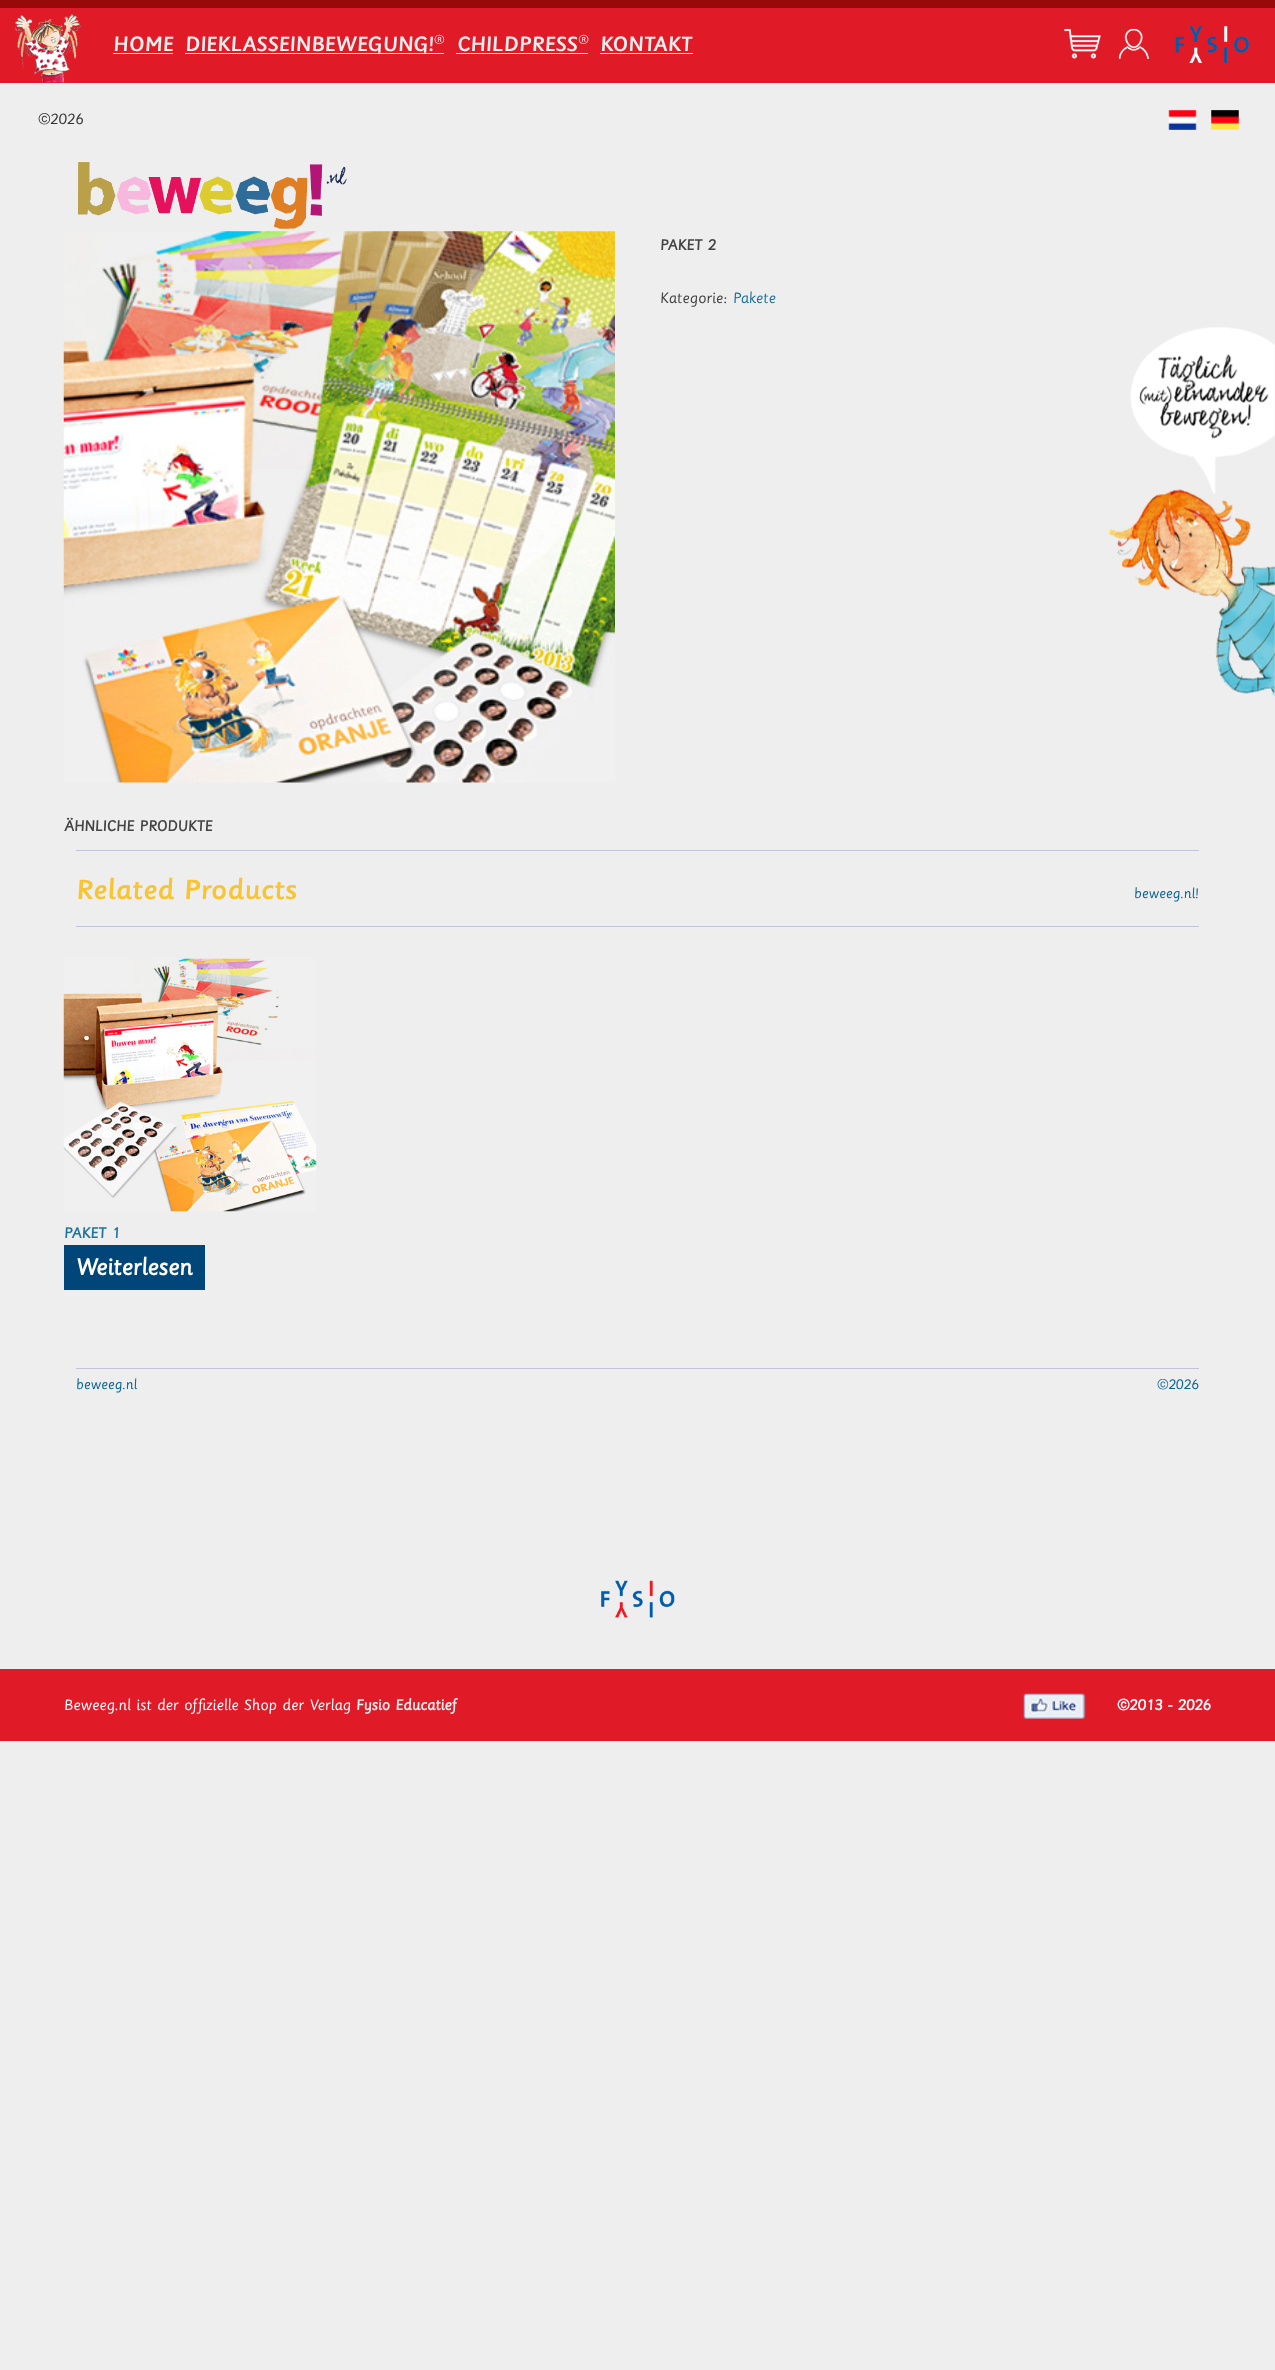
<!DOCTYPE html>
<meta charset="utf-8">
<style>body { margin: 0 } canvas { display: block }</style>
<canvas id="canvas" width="1275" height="2370"></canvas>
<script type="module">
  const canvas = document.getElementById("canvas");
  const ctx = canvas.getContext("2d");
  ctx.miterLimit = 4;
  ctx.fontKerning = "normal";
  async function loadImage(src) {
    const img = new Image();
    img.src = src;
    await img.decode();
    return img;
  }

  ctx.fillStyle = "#eeeeee";
  ctx.fillRect(0, 0, 1275, 2370);
  ctx.fillStyle = "#98090b";
  ctx.fillRect(0, 0, 1275, 8);
  ctx.fillStyle = "#e11a28";
  ctx.fillRect(0, 8, 1275, 75);
  ctx.drawImage(await loadImage("img1.png"), 15, 14, 67, 69);
  ctx.font = "500 22.5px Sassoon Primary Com";
  ctx.fillStyle = "#eeeeee";
  ctx.fillText("HOME", 113, 51);
  ctx.fillRect(113, 53, 60, 1);
  ctx.fillText("DIEKLASSEINBEWEGUNG!®", 185, 51);
  ctx.fillRect(185, 53, 259, 1);
  ctx.fillText("CHILDPRESS®", 457, 51);
  ctx.fillRect(456, 53, 132, 1);
  ctx.fillText("KONTAKT", 600, 51);
  ctx.fillRect(600, 53, 93, 1);
  ctx.drawImage(await loadImage("img2.png"), 1064, 28, 37, 31);
  ctx.drawImage(await loadImage("img3.png"), 1118, 28, 31, 31);
  ctx.drawImage(await loadImage("img4.png"), 1175, 26, 74, 37);
  ctx.font = "16.25px Sassoon Primary Com";
  ctx.fillStyle = "#333333";
  ctx.fillText("©2026", 38, 124);
  ctx.drawImage(await loadImage("img5.png"), 1168, 110, 29, 20);
  ctx.drawImage(await loadImage("img6.png"), 1211, 110, 28, 20);
  ctx.drawImage(await loadImage("img7.png"), 78, 162, 269, 67);
  ctx.drawImage(await loadImage("img8.png"), 63, 231, 552, 552);
  ctx.font = "bold 16.25px Sassoon Primary Com";
  ctx.fillStyle = "#444444";
  ctx.fillText("PAKET 2", 660, 250);
  ctx.font = "16.25px Sassoon Primary Com";
  ctx.fillText("Kategorie:", 660, 303);
  ctx.fillStyle = "#21759b";
  ctx.fillText("Pakete", 733, 303);
  ctx.font = "bold 16.25px Sassoon Primary Com";
  ctx.fillStyle = "#444444";
  ctx.fillText("ÄHNLICHE PRODUKTE", 64, 831);
  ctx.fillStyle = "#c3c4d9";
  ctx.fillRect(76, 850, 1123, 1);
  ctx.fillRect(76, 926, 1123, 1);
  ctx.font = "500 30px Sassoon Primary Com";
  ctx.fillStyle = "#f8c432";
  ctx.fillText("Related Products", 76, 899);
  ctx.font = "15px Sassoon Primary Com";
  ctx.fillStyle = "#0c6594";
  ctx.fillText("beweeg.nl!", 1134, 898);
  ctx.drawImage(await loadImage("img9.png"), 63, 958, 254, 254);
  ctx.font = "bold 16.25px Sassoon Primary Com";
  ctx.fillStyle = "#21759b";
  ctx.fillText("PAKET 1", 64, 1238);
  ctx.fillStyle = "#004678";
  ctx.fillRect(64, 1245, 141, 45);
  ctx.font = "bold 25px Sassoon Primary Com";
  ctx.fillStyle = "#ffffff";
  ctx.fillText("Weiterlesen", 76, 1275);
  ctx.fillStyle = "#c3c4d9";
  ctx.fillRect(76, 1368, 1123, 1);
  ctx.font = "15px Sassoon Primary Com";
  ctx.fillStyle = "#0c6594";
  ctx.fillText("beweeg.nl", 76, 1389);
  ctx.fillText("©2026", 1157, 1389);
  ctx.drawImage(await loadImage("img10.png"), 1107, 327, 168, 370);
  ctx.drawImage(await loadImage("img11.png"), 601, 1580, 74, 38);
  ctx.fillStyle = "#e11a28";
  ctx.fillRect(0, 1669, 1275, 72);
  ctx.font = "16.25px Sassoon Primary Com";
  ctx.fillStyle = "#ffffff";
  ctx.fillText("Beweeg.nl ist der offizielle Shop der Verlag", 64, 1710);
  ctx.font = "bold 16.25px Sassoon Primary Com";
  ctx.fillStyle = "#eeeeee";
  ctx.fillText("Fysio Educatief", 356, 1710);
  ctx.drawImage(await loadImage("img12.png"), 1023, 1693, 63, 26);
  ctx.fillStyle = "#ffffff";
  ctx.fillText("©2013 - 2026", 1117, 1710);
</script>
